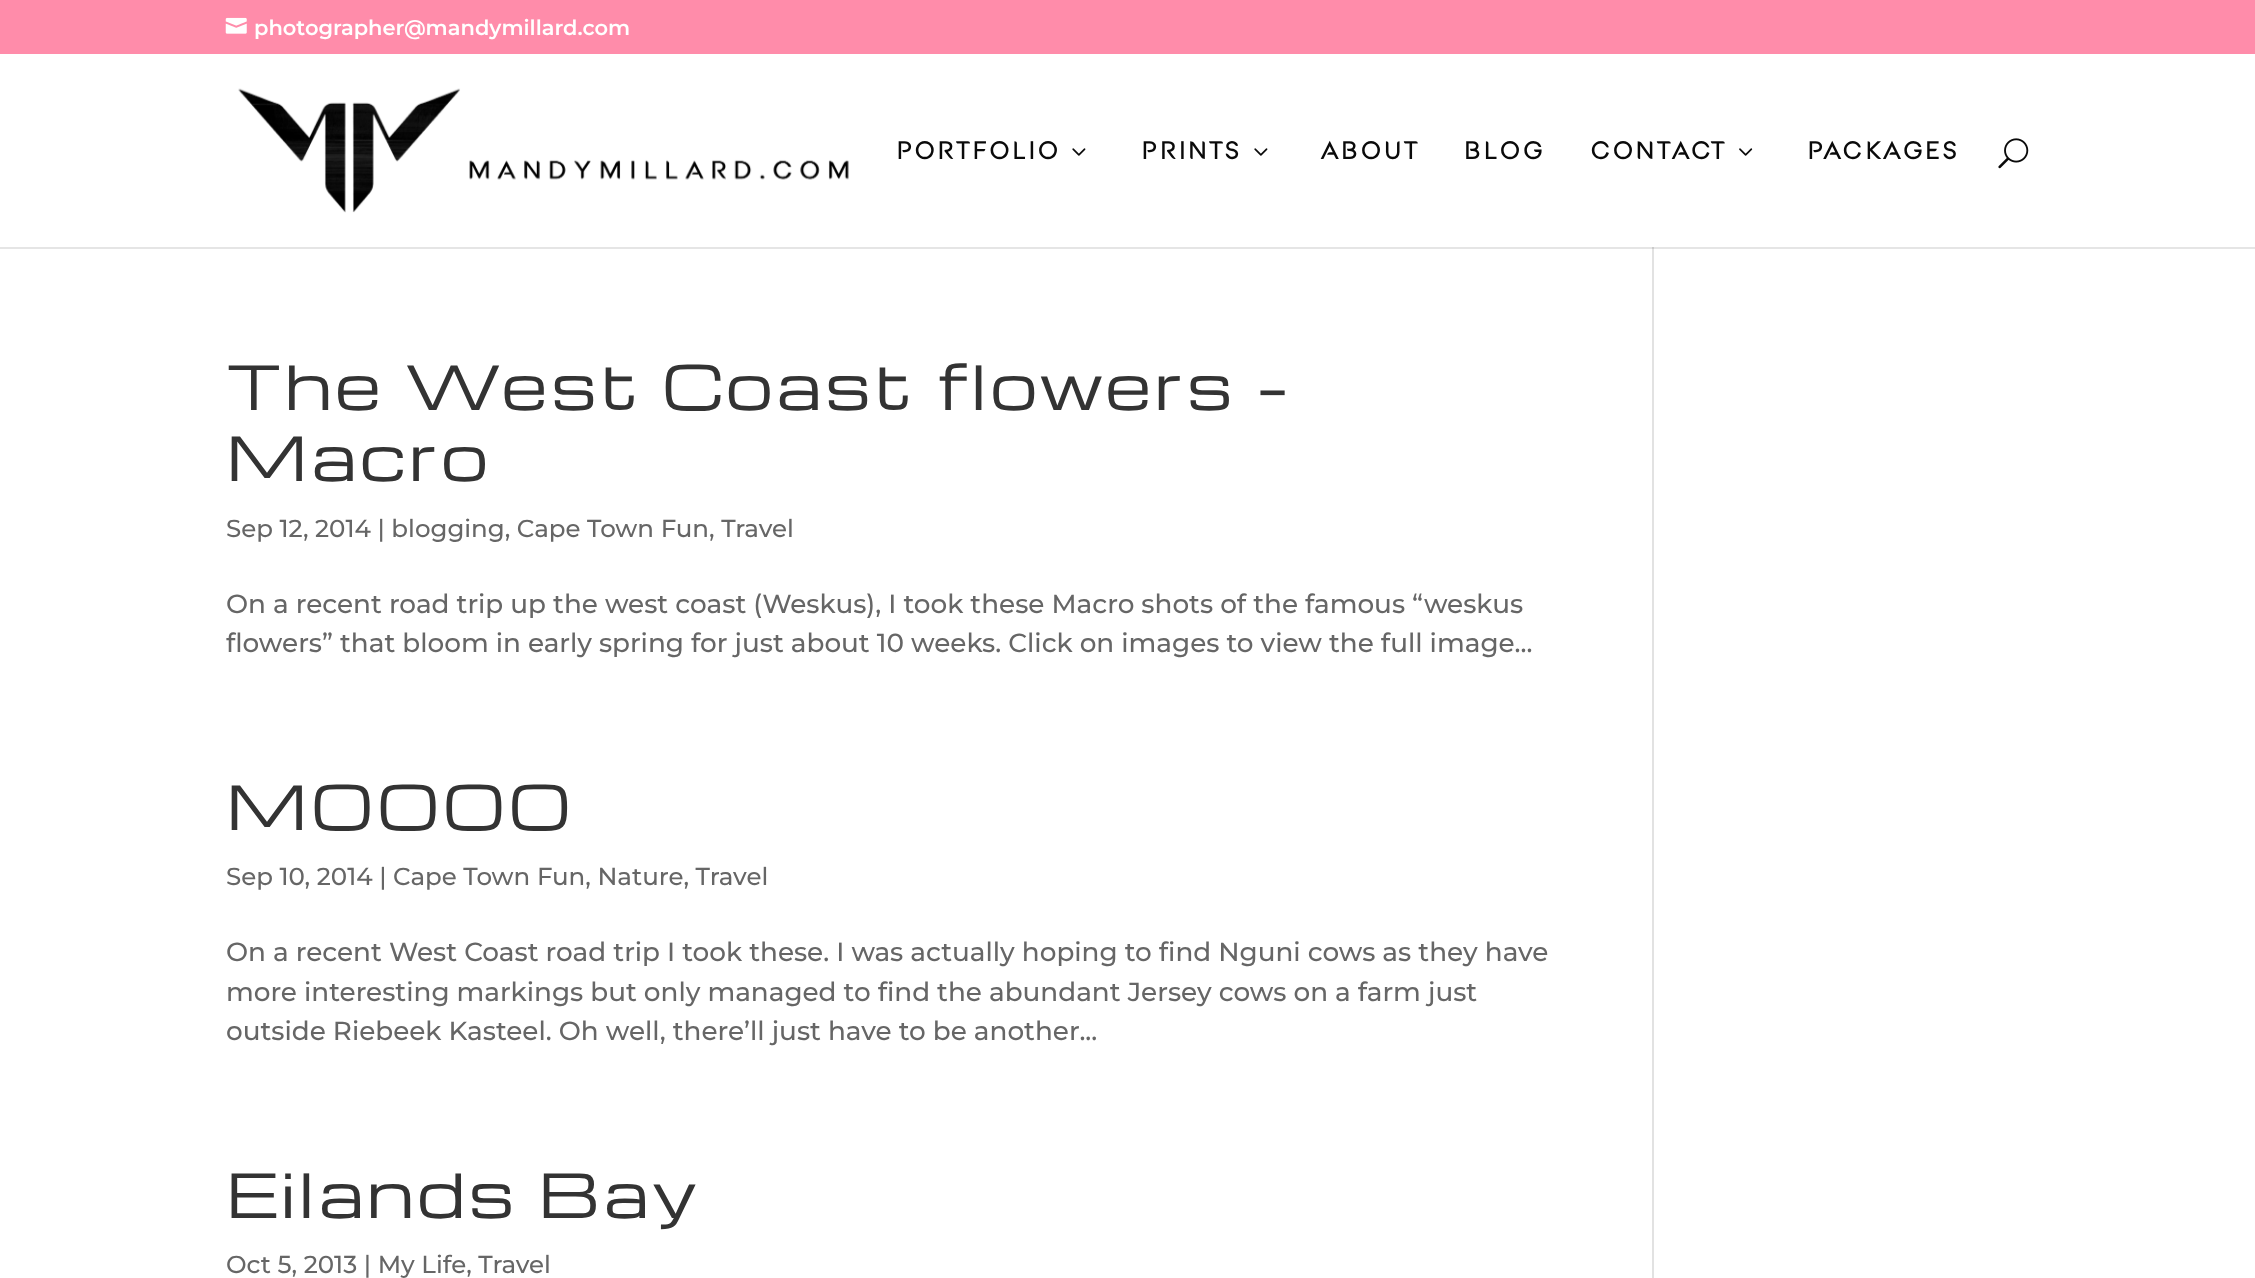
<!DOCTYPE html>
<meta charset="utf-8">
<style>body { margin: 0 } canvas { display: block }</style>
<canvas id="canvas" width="2255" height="1278"></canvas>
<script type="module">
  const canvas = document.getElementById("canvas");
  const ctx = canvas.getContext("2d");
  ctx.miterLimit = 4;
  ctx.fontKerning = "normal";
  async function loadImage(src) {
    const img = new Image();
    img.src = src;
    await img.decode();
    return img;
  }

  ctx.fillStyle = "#ff8caa";
  ctx.fillRect(0, 0, 2255, 1278);
  ctx.drawImage(await loadImage("img1.png"), 225, 17, 22, 17);
  ctx.font = "600 21px Montserrat";
  ctx.fillStyle = "#ffffff";
  ctx.fillText("photographer@mandymillard.com", 254, 35);
  ctx.fillRect(0, 54, 2255, 1224);
  ctx.fillStyle = "#e2e2e2";
  ctx.fillRect(1652, 247, 2, 1031);
  ctx.fillStyle = "rgba(0, 0, 0, 0.1)";
  ctx.beginPath();
  ctx.moveTo(0, 247);
  ctx.lineTo(0, 249);
  ctx.lineTo(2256, 249);
  ctx.lineTo(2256, 56);
  ctx.lineTo(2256, 247);
  ctx.closePath();
  ctx.fill();
  ctx.drawImage(await loadImage("img2.png"), 238, 88, 611, 125);
  ctx.letterSpacing = "3.5px";
  ctx.font = "bold 24.5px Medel";
  ctx.fillStyle = "#0a0a0a";
  ctx.fillText("PORTFOLIO", 896, 159);
  ctx.drawImage(await loadImage("img3.png"), 1072, 148, 14, 8);
  ctx.fillText("PRINTS", 1141, 159);
  ctx.drawImage(await loadImage("img3.png"), 1254, 148, 14, 8);
  ctx.fillText("ABOUT", 1322, 159);
  ctx.fillText("BLOG", 1465, 159);
  ctx.fillText("CONTACT", 1591, 159);
  ctx.drawImage(await loadImage("img4.png"), 1739, 148, 14, 8);
  ctx.fillText("PACKAGES", 1807, 159);
  ctx.drawImage(await loadImage("img5.png"), 1998, 138, 31, 31);
  ctx.font = "59.5px Michroma";
  ctx.fillStyle = "#333333";
  ctx.fillText("The West Coast flowers –", 226, 410);
  ctx.fillText("Macro", 226, 481);
  ctx.letterSpacing = "0px";
  ctx.font = "500 24.5px Montserrat";
  ctx.fillStyle = "#666666";
  ctx.fillText("Sep 12, 2014 | blogging, Cape Town Fun, Travel", 226, 537);
  ctx.font = "500 26.25px Montserrat";
  ctx.fillText("On a recent road trip up the west coast (Weskus), I took these Macro shots of the famous “weskus", 226, 613);
  ctx.fillText("flowers” that bloom in early spring for just about 10 weeks. Click on images to view the full image...", 226, 652);
  ctx.letterSpacing = "3.5px";
  ctx.font = "59.5px Michroma";
  ctx.fillStyle = "#333333";
  ctx.fillText("MOOOO", 226, 830);
  ctx.letterSpacing = "0px";
  ctx.font = "500 24.5px Montserrat";
  ctx.fillStyle = "#666666";
  ctx.fillText("Sep 10, 2014 | Cape Town Fun, Nature, Travel", 226, 885);
  ctx.font = "500 26.25px Montserrat";
  ctx.fillText("On a recent West Coast road trip I took these. I was actually hoping to find Nguni cows as they have", 226, 961);
  ctx.fillText("more interesting markings but only managed to find the abundant Jersey cows on a farm just", 226, 1001);
  ctx.fillText("outside Riebeek Kasteel. Oh well, there’ll just have to be another...", 226, 1040);
  ctx.letterSpacing = "3.5px";
  ctx.font = "59.5px Michroma";
  ctx.fillStyle = "#333333";
  ctx.fillText("Eilands Bay", 226, 1218);
  ctx.letterSpacing = "0px";
  ctx.font = "500 24.5px Montserrat";
  ctx.fillStyle = "#666666";
  ctx.fillText("Oct 5, 2013 | My Life, Travel", 226, 1273);
</script>
